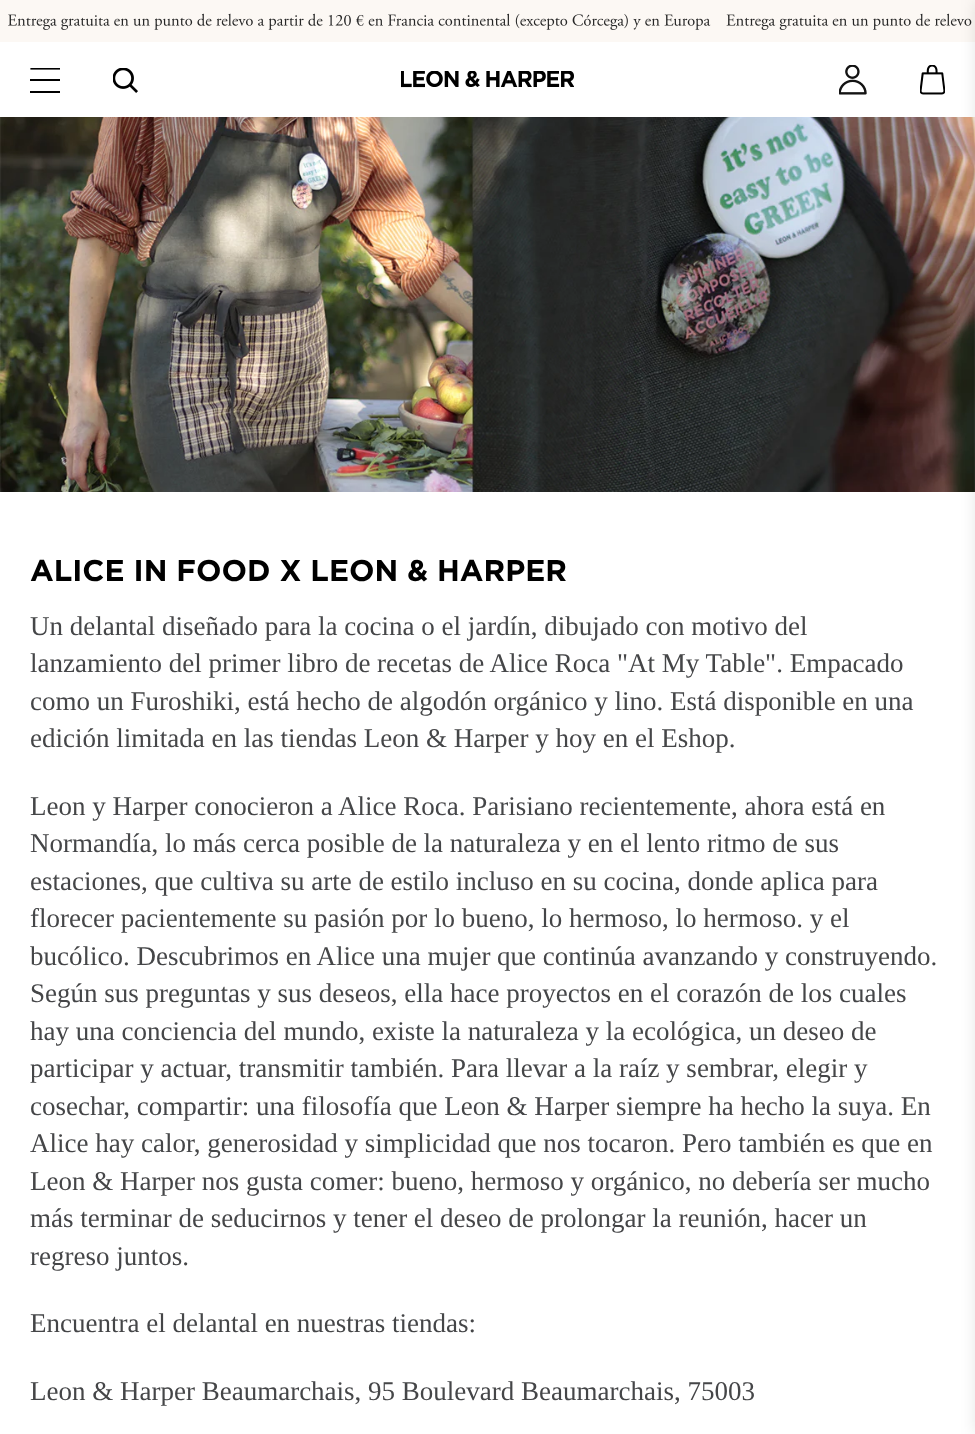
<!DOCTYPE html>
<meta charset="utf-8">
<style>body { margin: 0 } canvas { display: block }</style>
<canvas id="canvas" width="975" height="1434"></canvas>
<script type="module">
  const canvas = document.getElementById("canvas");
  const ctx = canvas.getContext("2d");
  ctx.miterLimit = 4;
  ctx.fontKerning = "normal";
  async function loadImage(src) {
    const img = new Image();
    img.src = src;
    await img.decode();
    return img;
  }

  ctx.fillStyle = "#ffffff";
  ctx.fillRect(0, 0, 975, 1434);
  ctx.fillStyle = "#fcf8f4";
  ctx.fillRect(0, 0, 975, 42);
  ctx.drawImage(await loadImage("img1.png"), 8, 14, 102, 16);
  ctx.drawImage(await loadImage("img2.png"), 114, 13, 597, 17);
  ctx.drawImage(await loadImage("img3.png"), 726, 14, 103, 16);
  ctx.drawImage(await loadImage("img4.png"), 832, 13, 140, 17);
  ctx.save();
  ctx.beginPath();
  ctx.rect(30, 68, 30, 25);
  ctx.clip();
  ctx.beginPath();
  ctx.moveTo(31.5, 68.5);
  ctx.lineTo(59, 68.5);
  ctx.strokeStyle = "#000000";
  ctx.lineWidth = 2.2;
  ctx.lineCap = "square";
  ctx.stroke();
  ctx.restore();
  ctx.fillStyle = "#000000";
  ctx.fillRect(30, 79, 30, 2);
  ctx.fillRect(30, 91, 30, 2);
  ctx.drawImage(await loadImage("img5.png"), 113, 68, 25, 25);
  ctx.drawImage(await loadImage("img6.png"), 401, 71, 173, 17);
  ctx.drawImage(await loadImage("img7.png"), 839, 65, 28, 30);
  ctx.drawImage(await loadImage("img8.png"), 920, 65, 25, 30);
  ctx.drawImage(await loadImage("img9.png"), 0, 117, 975, 375);
  ctx.fillStyle = "rgba(0, 0, 0, 0.1)";
  ctx.filter = "blur(7.5px)";
  ctx.beginPath();
  ctx.rect(975, 0, 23, 1434);
  ctx.fill();
  ctx.filter = "none";
  ctx.font = "bold 30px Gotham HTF";
  ctx.fillStyle = "#000000";
  ctx.fillText("ALICE IN FOOD X LEON & HARPER", 30, 581);
  ctx.font = "27px Liberation Serif";
  ctx.fillStyle = "#454648";
  ctx.fillText("Un delantal diseñado para la cocina o el jardín, dibujado con motivo del", 30, 635);
  ctx.fillText("lanzamiento del primer libro de recetas de Alice Roca \"At My Table\". Empacado", 30, 672);
  ctx.fillText("como un Furoshiki, está hecho de algodón orgánico y lino. Está disponible en una", 30, 710);
  ctx.fillText("edición limitada en las tiendas Leon & Harper y hoy en el Eshop.", 30, 747);
  ctx.fillText("Leon y Harper conocieron a Alice Roca. Parisiano recientemente, ahora está en", 30, 815);
  ctx.fillText("Normandía, lo más cerca posible de la naturaleza y en el lento ritmo de sus", 30, 852);
  ctx.fillText("estaciones, que cultiva su arte de estilo incluso en su cocina, donde aplica para", 30, 890);
  ctx.fillText("florecer pacientemente su pasión por lo bueno, lo hermoso, lo hermoso. y el", 30, 927);
  ctx.fillText("bucólico. Descubrimos en Alice una mujer que continúa avanzando y construyendo.", 30, 965);
  ctx.fillText("Según sus preguntas y sus deseos, ella hace proyectos en el corazón de los cuales", 30, 1002);
  ctx.fillText("hay una conciencia del mundo, existe la naturaleza y la ecológica, un deseo de", 30, 1040);
  ctx.fillText("participar y actuar, transmitir también. Para llevar a la raíz y sembrar, elegir y", 30, 1077);
  ctx.fillText("cosechar, compartir: una filosofía que Leon & Harper siempre ha hecho la suya. En", 30, 1115);
  ctx.fillText("Alice hay calor, generosidad y simplicidad que nos tocaron. Pero también es que en", 30, 1152);
  ctx.fillText("Leon & Harper nos gusta comer: bueno, hermoso y orgánico, no debería ser mucho", 30, 1190);
  ctx.fillText("más terminar de seducirnos y tener el deseo de prolongar la reunión, hacer un", 30, 1227);
  ctx.fillText("regreso juntos.", 30, 1265);
  ctx.fillText("Encuentra el delantal en nuestras tiendas:", 30, 1332);
  ctx.fillText("Leon & Harper Beaumarchais, 95 Boulevard Beaumarchais, 75003", 30, 1400);
</script>
